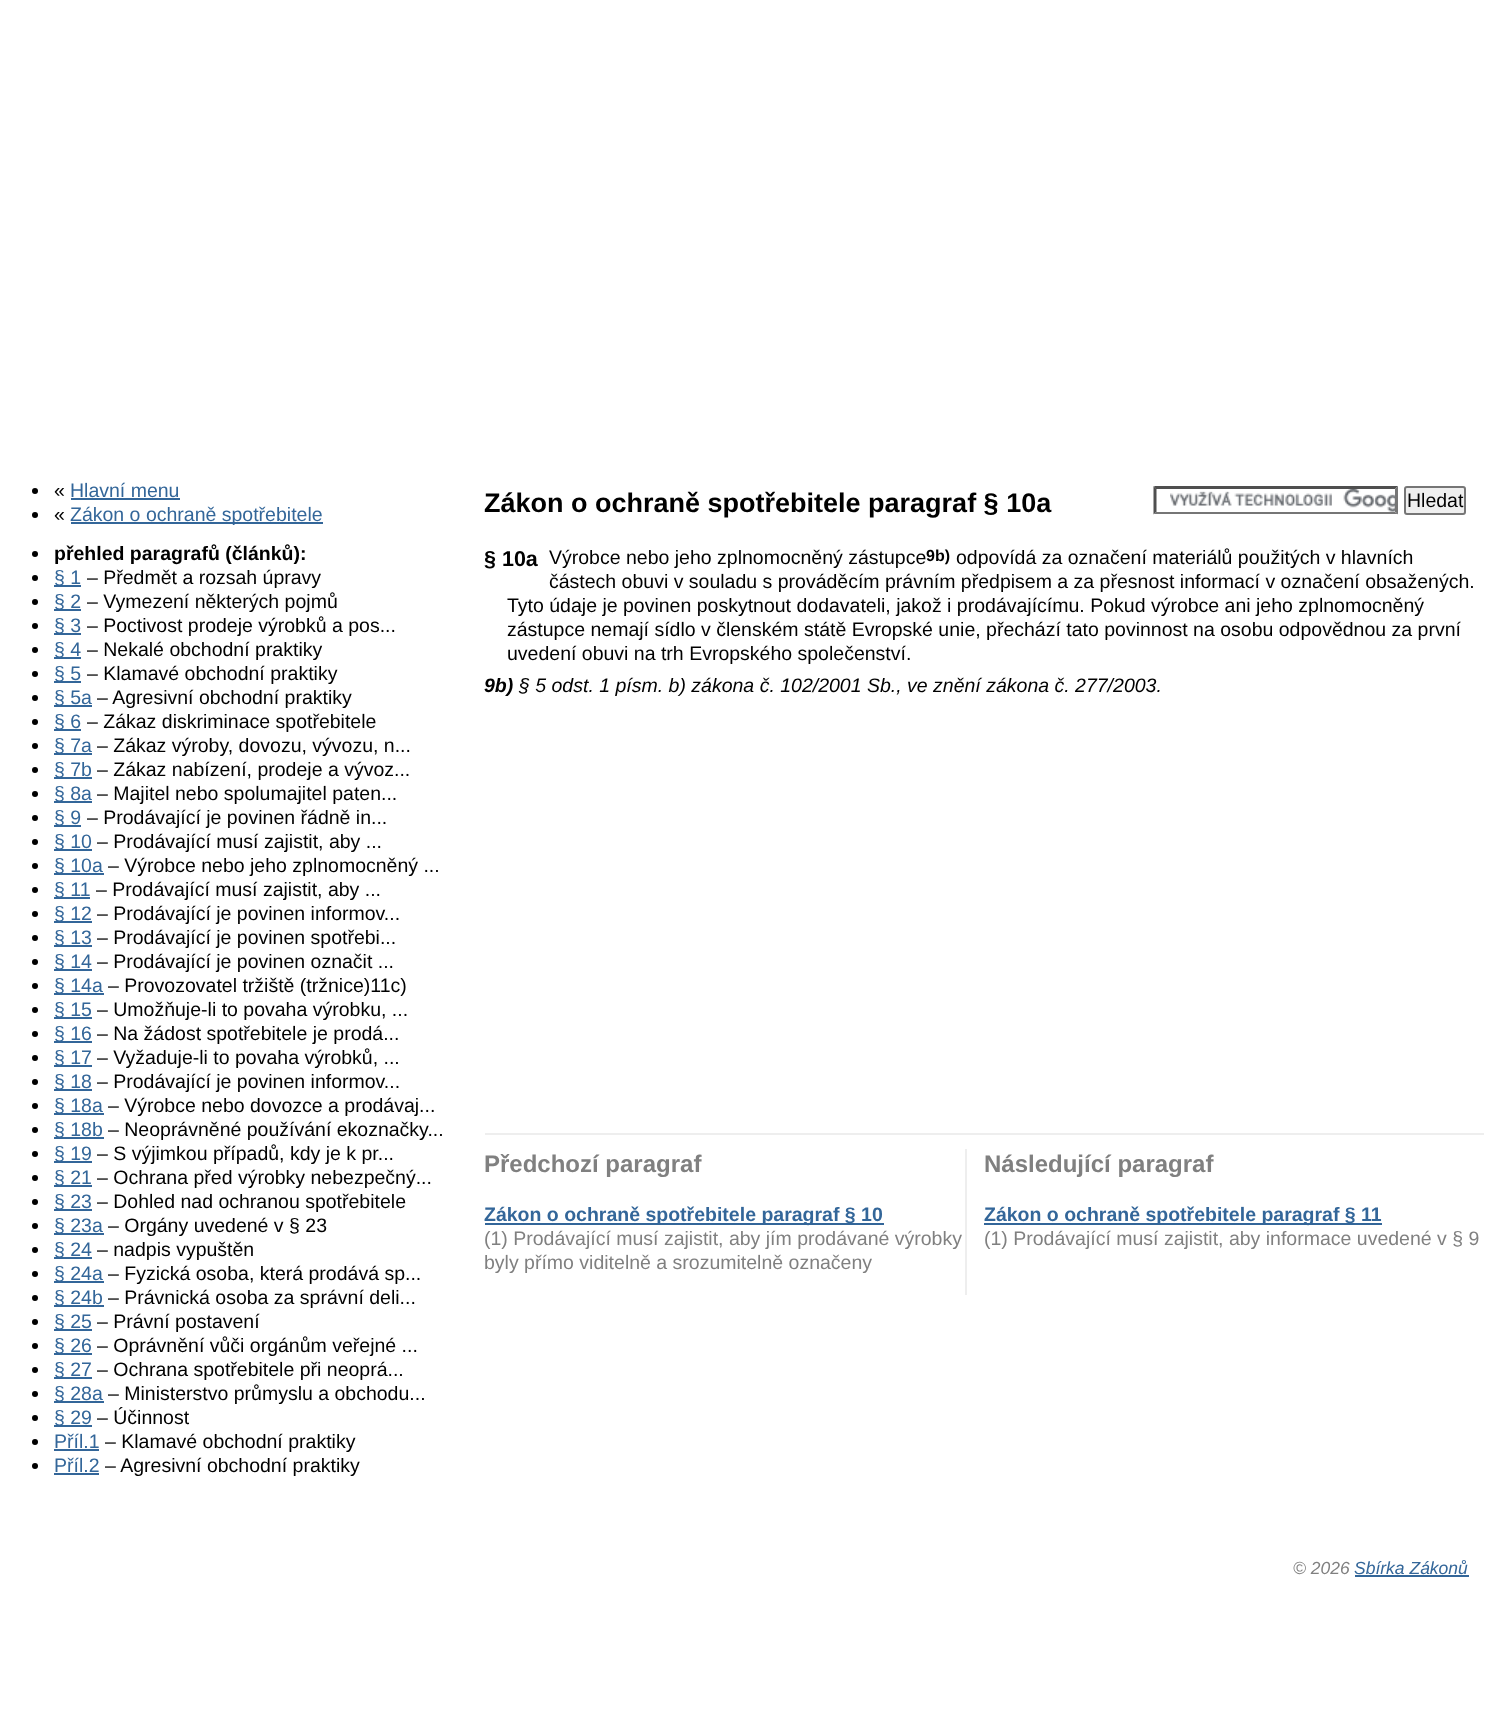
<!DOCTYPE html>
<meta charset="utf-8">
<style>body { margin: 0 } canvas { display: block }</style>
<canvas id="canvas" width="1498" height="1718"></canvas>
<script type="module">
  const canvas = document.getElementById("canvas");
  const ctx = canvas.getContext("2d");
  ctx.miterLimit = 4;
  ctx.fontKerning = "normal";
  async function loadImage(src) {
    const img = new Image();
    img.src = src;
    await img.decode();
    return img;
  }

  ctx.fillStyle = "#ffffff";
  ctx.fillRect(0, 0, 1498, 1718);
  ctx.fillStyle = "#000000";
  ctx.beginPath();
  ctx.arc(35, 491, 3, 0, Math.PI * 2);
  ctx.fill();
  ctx.font = "19.5px Liberation Sans";
  ctx.fillText("«", 54, 497);
  ctx.fillStyle = "#336699";
  ctx.fillText("Hlavní menu", 70, 497);
  ctx.fillRect(71, 498, 109, 2);
  ctx.fillStyle = "#000000";
  ctx.beginPath();
  ctx.arc(35, 515, 3, 0, Math.PI * 2);
  ctx.fill();
  ctx.fillText("«", 54, 521);
  ctx.fillStyle = "#336699";
  ctx.fillRect(71, 522, 252, 2);
  ctx.fillText("Zákon o ochraně spotřebitele", 70, 521);
  ctx.fillStyle = "#000000";
  ctx.beginPath();
  ctx.arc(35, 554, 3, 0, Math.PI * 2);
  ctx.fill();
  ctx.font = "bold 19.5px Liberation Sans";
  ctx.fillText("přehled paragrafů (článků):", 54, 560);
  ctx.beginPath();
  ctx.arc(35, 578, 3, 0, Math.PI * 2);
  ctx.fill();
  ctx.fillStyle = "#336699";
  ctx.fillRect(54, 585, 27, 2);
  ctx.font = "19.5px Liberation Sans";
  ctx.fillText("§ 1", 54, 584);
  ctx.fillStyle = "#000000";
  ctx.fillText("– Předmět a rozsah úpravy", 87, 584);
  ctx.beginPath();
  ctx.arc(35, 602, 3, 0, Math.PI * 2);
  ctx.fill();
  ctx.fillStyle = "#336699";
  ctx.fillRect(54, 609, 27, 2);
  ctx.fillText("§ 2", 54, 608);
  ctx.fillStyle = "#000000";
  ctx.fillText("– Vymezení některých pojmů", 87, 608);
  ctx.beginPath();
  ctx.arc(35, 626, 3, 0, Math.PI * 2);
  ctx.fill();
  ctx.fillStyle = "#336699";
  ctx.fillRect(54, 633, 27, 2);
  ctx.fillText("§ 3", 54, 632);
  ctx.fillStyle = "#000000";
  ctx.fillText("– Poctivost prodeje výrobků a pos...", 87, 632);
  ctx.beginPath();
  ctx.arc(35, 650, 3, 0, Math.PI * 2);
  ctx.fill();
  ctx.fillStyle = "#336699";
  ctx.fillRect(54, 657, 27, 2);
  ctx.fillText("§ 4", 54, 656);
  ctx.fillStyle = "#000000";
  ctx.fillText("– Nekalé obchodní praktiky", 87, 656);
  ctx.beginPath();
  ctx.arc(35, 674, 3, 0, Math.PI * 2);
  ctx.fill();
  ctx.fillStyle = "#336699";
  ctx.fillRect(54, 681, 27, 2);
  ctx.fillText("§ 5", 54, 680);
  ctx.fillStyle = "#000000";
  ctx.fillText("– Klamavé obchodní praktiky", 87, 680);
  ctx.beginPath();
  ctx.arc(35, 698, 3, 0, Math.PI * 2);
  ctx.fill();
  ctx.fillStyle = "#336699";
  ctx.fillRect(54, 705, 38, 2);
  ctx.fillText("§ 5a", 54, 704);
  ctx.fillStyle = "#000000";
  ctx.fillText("– Agresivní obchodní praktiky", 97, 704);
  ctx.beginPath();
  ctx.arc(35, 722, 3, 0, Math.PI * 2);
  ctx.fill();
  ctx.fillStyle = "#336699";
  ctx.fillRect(54, 729, 27, 2);
  ctx.fillText("§ 6", 54, 728);
  ctx.fillStyle = "#000000";
  ctx.fillText("– Zákaz diskriminace spotřebitele", 87, 728);
  ctx.beginPath();
  ctx.arc(35, 746, 3, 0, Math.PI * 2);
  ctx.fill();
  ctx.fillStyle = "#336699";
  ctx.fillRect(54, 753, 38, 2);
  ctx.fillText("§ 7a", 54, 752);
  ctx.fillStyle = "#000000";
  ctx.fillText("– Zákaz výroby, dovozu, vývozu, n...", 97, 752);
  ctx.beginPath();
  ctx.arc(35, 770, 3, 0, Math.PI * 2);
  ctx.fill();
  ctx.fillStyle = "#336699";
  ctx.fillRect(54, 777, 38, 2);
  ctx.fillText("§ 7b", 54, 776);
  ctx.fillStyle = "#000000";
  ctx.fillText("– Zákaz nabízení, prodeje a vývoz...", 97, 776);
  ctx.beginPath();
  ctx.arc(35, 794, 3, 0, Math.PI * 2);
  ctx.fill();
  ctx.fillStyle = "#336699";
  ctx.fillRect(54, 801, 38, 2);
  ctx.fillText("§ 8a", 54, 800);
  ctx.fillStyle = "#000000";
  ctx.fillText("– Majitel nebo spolumajitel paten...", 97, 800);
  ctx.beginPath();
  ctx.arc(35, 818, 3, 0, Math.PI * 2);
  ctx.fill();
  ctx.fillStyle = "#336699";
  ctx.fillRect(54, 825, 27, 2);
  ctx.fillText("§ 9", 54, 824);
  ctx.fillStyle = "#000000";
  ctx.fillText("– Prodávající je povinen řádně in...", 87, 824);
  ctx.beginPath();
  ctx.arc(35, 842, 3, 0, Math.PI * 2);
  ctx.fill();
  ctx.fillStyle = "#336699";
  ctx.fillRect(54, 849, 38, 2);
  ctx.fillText("§ 10", 54, 848);
  ctx.fillStyle = "#000000";
  ctx.fillText("– Prodávající musí zajistit, aby ...", 97, 848);
  ctx.beginPath();
  ctx.arc(35, 866, 3, 0, Math.PI * 2);
  ctx.fill();
  ctx.fillStyle = "#336699";
  ctx.fillRect(54, 873, 50, 2);
  ctx.fillText("§ 10a", 54, 872);
  ctx.fillStyle = "#000000";
  ctx.fillText("– Výrobce nebo jeho zplnomocněný ...", 108, 872);
  ctx.beginPath();
  ctx.arc(35, 890, 3, 0, Math.PI * 2);
  ctx.fill();
  ctx.fillStyle = "#336699";
  ctx.fillRect(54, 897, 36, 2);
  ctx.fillText("§ 11", 54, 896);
  ctx.fillStyle = "#000000";
  ctx.fillText("– Prodávající musí zajistit, aby ...", 96, 896);
  ctx.beginPath();
  ctx.arc(35, 914, 3, 0, Math.PI * 2);
  ctx.fill();
  ctx.fillStyle = "#336699";
  ctx.fillRect(54, 921, 38, 2);
  ctx.fillText("§ 12", 54, 920);
  ctx.fillStyle = "#000000";
  ctx.fillText("– Prodávající je povinen informov...", 97, 920);
  ctx.beginPath();
  ctx.arc(35, 938, 3, 0, Math.PI * 2);
  ctx.fill();
  ctx.fillStyle = "#336699";
  ctx.fillRect(54, 945, 38, 2);
  ctx.fillText("§ 13", 54, 944);
  ctx.fillStyle = "#000000";
  ctx.fillText("– Prodávající je povinen spotřebi...", 97, 944);
  ctx.beginPath();
  ctx.arc(35, 962, 3, 0, Math.PI * 2);
  ctx.fill();
  ctx.fillStyle = "#336699";
  ctx.fillRect(54, 969, 38, 2);
  ctx.fillText("§ 14", 54, 968);
  ctx.fillStyle = "#000000";
  ctx.fillText("– Prodávající je povinen označit ...", 97, 968);
  ctx.beginPath();
  ctx.arc(35, 986, 3, 0, Math.PI * 2);
  ctx.fill();
  ctx.fillStyle = "#336699";
  ctx.fillRect(54, 993, 50, 2);
  ctx.fillText("§ 14a", 54, 992);
  ctx.fillStyle = "#000000";
  ctx.fillText("– Provozovatel tržiště (tržnice)11c)", 108, 992);
  ctx.beginPath();
  ctx.arc(35, 1010, 3, 0, Math.PI * 2);
  ctx.fill();
  ctx.fillStyle = "#336699";
  ctx.fillRect(54, 1017, 38, 2);
  ctx.fillText("§ 15", 54, 1016);
  ctx.fillStyle = "#000000";
  ctx.fillText("– Umožňuje-li to povaha výrobku, ...", 97, 1016);
  ctx.beginPath();
  ctx.arc(35, 1034, 3, 0, Math.PI * 2);
  ctx.fill();
  ctx.fillStyle = "#336699";
  ctx.fillRect(54, 1041, 38, 2);
  ctx.fillText("§ 16", 54, 1040);
  ctx.fillStyle = "#000000";
  ctx.fillText("– Na žádost spotřebitele je prodá...", 97, 1040);
  ctx.beginPath();
  ctx.arc(35, 1058, 3, 0, Math.PI * 2);
  ctx.fill();
  ctx.fillStyle = "#336699";
  ctx.fillRect(54, 1065, 38, 2);
  ctx.fillText("§ 17", 54, 1064);
  ctx.fillStyle = "#000000";
  ctx.fillText("– Vyžaduje-li to povaha výrobků, ...", 97, 1064);
  ctx.beginPath();
  ctx.arc(35, 1082, 3, 0, Math.PI * 2);
  ctx.fill();
  ctx.fillStyle = "#336699";
  ctx.fillRect(54, 1089, 38, 2);
  ctx.fillText("§ 18", 54, 1088);
  ctx.fillStyle = "#000000";
  ctx.fillText("– Prodávající je povinen informov...", 97, 1088);
  ctx.beginPath();
  ctx.arc(35, 1106, 3, 0, Math.PI * 2);
  ctx.fill();
  ctx.fillStyle = "#336699";
  ctx.fillRect(54, 1113, 50, 2);
  ctx.fillText("§ 18a", 54, 1112);
  ctx.fillStyle = "#000000";
  ctx.fillText("– Výrobce nebo dovozce a prodávaj...", 108, 1112);
  ctx.beginPath();
  ctx.arc(35, 1130, 3, 0, Math.PI * 2);
  ctx.fill();
  ctx.fillStyle = "#336699";
  ctx.fillRect(54, 1137, 50, 2);
  ctx.fillText("§ 18b", 54, 1136);
  ctx.fillStyle = "#000000";
  ctx.fillText("– Neoprávněné používání ekoznačky...", 108, 1136);
  ctx.beginPath();
  ctx.arc(35, 1154, 3, 0, Math.PI * 2);
  ctx.fill();
  ctx.fillStyle = "#336699";
  ctx.fillRect(54, 1161, 38, 2);
  ctx.fillText("§ 19", 54, 1160);
  ctx.fillStyle = "#000000";
  ctx.fillText("– S výjimkou případů, kdy je k pr...", 97, 1160);
  ctx.beginPath();
  ctx.arc(35, 1178, 3, 0, Math.PI * 2);
  ctx.fill();
  ctx.fillStyle = "#336699";
  ctx.fillRect(54, 1185, 38, 2);
  ctx.fillText("§ 21", 54, 1184);
  ctx.fillStyle = "#000000";
  ctx.fillText("– Ochrana před výrobky nebezpečný...", 97, 1184);
  ctx.beginPath();
  ctx.arc(35, 1202, 3, 0, Math.PI * 2);
  ctx.fill();
  ctx.fillStyle = "#336699";
  ctx.fillRect(54, 1209, 38, 2);
  ctx.fillText("§ 23", 54, 1208);
  ctx.fillStyle = "#000000";
  ctx.fillText("– Dohled nad ochranou spotřebitele", 97, 1208);
  ctx.beginPath();
  ctx.arc(35, 1226, 3, 0, Math.PI * 2);
  ctx.fill();
  ctx.fillStyle = "#336699";
  ctx.fillRect(54, 1233, 50, 2);
  ctx.fillText("§ 23a", 54, 1232);
  ctx.fillStyle = "#000000";
  ctx.fillText("– Orgány uvedené v § 23", 108, 1232);
  ctx.beginPath();
  ctx.arc(35, 1250, 3, 0, Math.PI * 2);
  ctx.fill();
  ctx.fillStyle = "#336699";
  ctx.fillRect(54, 1257, 38, 2);
  ctx.fillText("§ 24", 54, 1256);
  ctx.fillStyle = "#000000";
  ctx.fillText("– nadpis vypuštěn", 97, 1256);
  ctx.beginPath();
  ctx.arc(35, 1274, 3, 0, Math.PI * 2);
  ctx.fill();
  ctx.fillStyle = "#336699";
  ctx.fillRect(54, 1281, 50, 2);
  ctx.fillText("§ 24a", 54, 1280);
  ctx.fillStyle = "#000000";
  ctx.fillText("– Fyzická osoba, která prodává sp...", 108, 1280);
  ctx.beginPath();
  ctx.arc(35, 1298, 3, 0, Math.PI * 2);
  ctx.fill();
  ctx.fillStyle = "#336699";
  ctx.fillRect(54, 1305, 50, 2);
  ctx.fillText("§ 24b", 54, 1304);
  ctx.fillStyle = "#000000";
  ctx.fillText("– Právnická osoba za správní deli...", 108, 1304);
  ctx.beginPath();
  ctx.arc(35, 1322, 3, 0, Math.PI * 2);
  ctx.fill();
  ctx.fillStyle = "#336699";
  ctx.fillRect(54, 1329, 38, 2);
  ctx.fillText("§ 25", 54, 1328);
  ctx.fillStyle = "#000000";
  ctx.fillText("– Právní postavení", 97, 1328);
  ctx.beginPath();
  ctx.arc(35, 1346, 3, 0, Math.PI * 2);
  ctx.fill();
  ctx.fillStyle = "#336699";
  ctx.fillRect(54, 1353, 38, 2);
  ctx.fillText("§ 26", 54, 1352);
  ctx.fillStyle = "#000000";
  ctx.fillText("– Oprávnění vůči orgánům veřejné ...", 97, 1352);
  ctx.beginPath();
  ctx.arc(35, 1370, 3, 0, Math.PI * 2);
  ctx.fill();
  ctx.fillStyle = "#336699";
  ctx.fillRect(54, 1377, 38, 2);
  ctx.fillText("§ 27", 54, 1376);
  ctx.fillStyle = "#000000";
  ctx.fillText("– Ochrana spotřebitele při neoprá...", 97, 1376);
  ctx.beginPath();
  ctx.arc(35, 1394, 3, 0, Math.PI * 2);
  ctx.fill();
  ctx.fillStyle = "#336699";
  ctx.fillRect(54, 1401, 50, 2);
  ctx.fillText("§ 28a", 54, 1400);
  ctx.fillStyle = "#000000";
  ctx.fillText("– Ministerstvo průmyslu a obchodu...", 108, 1400);
  ctx.beginPath();
  ctx.arc(35, 1418, 3, 0, Math.PI * 2);
  ctx.fill();
  ctx.fillStyle = "#336699";
  ctx.fillRect(54, 1425, 38, 2);
  ctx.fillText("§ 29", 54, 1424);
  ctx.fillStyle = "#000000";
  ctx.fillText("– Účinnost", 97, 1424);
  ctx.beginPath();
  ctx.arc(35, 1442, 3, 0, Math.PI * 2);
  ctx.fill();
  ctx.fillStyle = "#336699";
  ctx.fillText("Příl.1", 54, 1448);
  ctx.fillRect(54, 1449, 45, 2);
  ctx.fillStyle = "#000000";
  ctx.fillText("– Klamavé obchodní praktiky", 105, 1448);
  ctx.beginPath();
  ctx.arc(35, 1466, 3, 0, Math.PI * 2);
  ctx.fill();
  ctx.fillStyle = "#336699";
  ctx.fillText("Příl.2", 54, 1472);
  ctx.fillRect(54, 1473, 45, 2);
  ctx.fillStyle = "#000000";
  ctx.fillText("– Agresivní obchodní praktiky", 105, 1472);
  ctx.font = "bold 27px Liberation Sans";
  ctx.fillText("Zákon o ochraně spotřebitele paragraf § 10a", 484, 512);
  ctx.drawImage(await loadImage("img1.png"), 1170, 489, 226, 23);
  ctx.fillStyle = "#4f4f4f";
  ctx.beginPath();
  ctx.moveTo(1154, 486);
  ctx.lineTo(1398, 486);
  ctx.lineTo(1395, 489);
  ctx.lineTo(1156, 489);
  ctx.closePath();
  ctx.fill();
  ctx.fillStyle = "#767676";
  ctx.beginPath();
  ctx.moveTo(1398, 486);
  ctx.lineTo(1398, 514.5);
  ctx.lineTo(1395, 511.5);
  ctx.lineTo(1395, 489);
  ctx.closePath();
  ctx.fill();
  ctx.beginPath();
  ctx.moveTo(1398, 514);
  ctx.lineTo(1154, 514);
  ctx.lineTo(1156, 512);
  ctx.lineTo(1395, 512);
  ctx.closePath();
  ctx.fill();
  ctx.fillStyle = "#4f4f4f";
  ctx.beginPath();
  ctx.moveTo(1153.5, 514.5);
  ctx.lineTo(1153.5, 486);
  ctx.lineTo(1156.5, 489);
  ctx.lineTo(1156.5, 511.5);
  ctx.closePath();
  ctx.fill();
  ctx.fillStyle = "#efefef";
  ctx.beginPath();
  ctx.roundRect(1405, 487, 60, 27, 2);
  ctx.fill();
  ctx.strokeStyle = "#767676";
  ctx.lineWidth = 2;
  ctx.stroke();
  ctx.font = "19.5px Liberation Sans";
  ctx.fillStyle = "#000000";
  ctx.fillText("Hledat", 1407, 507);
  ctx.fillText("Výrobce nebo jeho zplnomocněný zástupce", 549, 564);
  ctx.font = "bold 16px Liberation Sans";
  ctx.fillText("9b)", 926, 561);
  ctx.font = "19.5px Liberation Sans";
  ctx.fillText("odpovídá za označení materiálů použitých v hlavních", 956, 564);
  ctx.fillText("částech obuvi v souladu s prováděcím právním předpisem a za přesnost informací v označení obsažených.", 549, 588);
  ctx.fillText("Tyto údaje je povinen poskytnout dodavateli, jakož i prodávajícímu. Pokud výrobce ani jeho zplnomocněný", 507, 612);
  ctx.fillText("zástupce nemají sídlo v členském státě Evropské unie, přechází tato povinnost na osobu odpovědnou za první", 507, 636);
  ctx.fillText("uvedení obuvi na trh Evropského společenství.", 507, 660);
  ctx.font = "bold 21.5px Liberation Sans";
  ctx.fillText("§ 10a", 484, 566);
  ctx.font = "italic bold 19.5px Liberation Sans";
  ctx.fillText("9b)", 484, 692);
  ctx.font = "italic 19.5px Liberation Sans";
  ctx.fillText("§ 5 odst. 1 písm. b) zákona č. 102/2001 Sb., ve znění zákona č. 277/2003.", 519, 692);
  ctx.fillStyle = "#eeeeee";
  ctx.fillRect(485, 1133, 999, 2);
  ctx.fillRect(965, 1149, 2, 146);
  ctx.font = "bold 24px Liberation Sans";
  ctx.fillStyle = "#808080";
  ctx.fillText("Předchozí paragraf", 484, 1172);
  ctx.fillStyle = "#336699";
  ctx.fillRect(485, 1223, 399, 2);
  ctx.font = "bold 19.5px Liberation Sans";
  ctx.fillText("Zákon o ochraně spotřebitele paragraf § 10", 484, 1221);
  ctx.font = "19.5px Liberation Sans";
  ctx.fillStyle = "#808080";
  ctx.fillText("(1) Prodávající musí zajistit, aby jím prodávané výrobky", 484, 1245);
  ctx.fillText("byly přímo viditelně a srozumitelně označeny", 484, 1269);
  ctx.font = "bold 24px Liberation Sans";
  ctx.fillText("Následující paragraf", 984, 1172);
  ctx.fillStyle = "#336699";
  ctx.fillRect(984, 1223, 398, 2);
  ctx.font = "bold 19.5px Liberation Sans";
  ctx.fillText("Zákon o ochraně spotřebitele paragraf § 11", 984, 1221);
  ctx.font = "19.5px Liberation Sans";
  ctx.fillStyle = "#808080";
  ctx.fillText("(1) Prodávající musí zajistit, aby informace uvedené v § 9", 984, 1245);
  ctx.font = "italic 17.5px Liberation Sans";
  ctx.fillText("© 2026", 1293, 1574);
  ctx.fillStyle = "#336699";
  ctx.fillText("Sbírka Zákonů", 1354, 1574);
  ctx.fillRect(1355, 1575, 114, 2);
</script>
